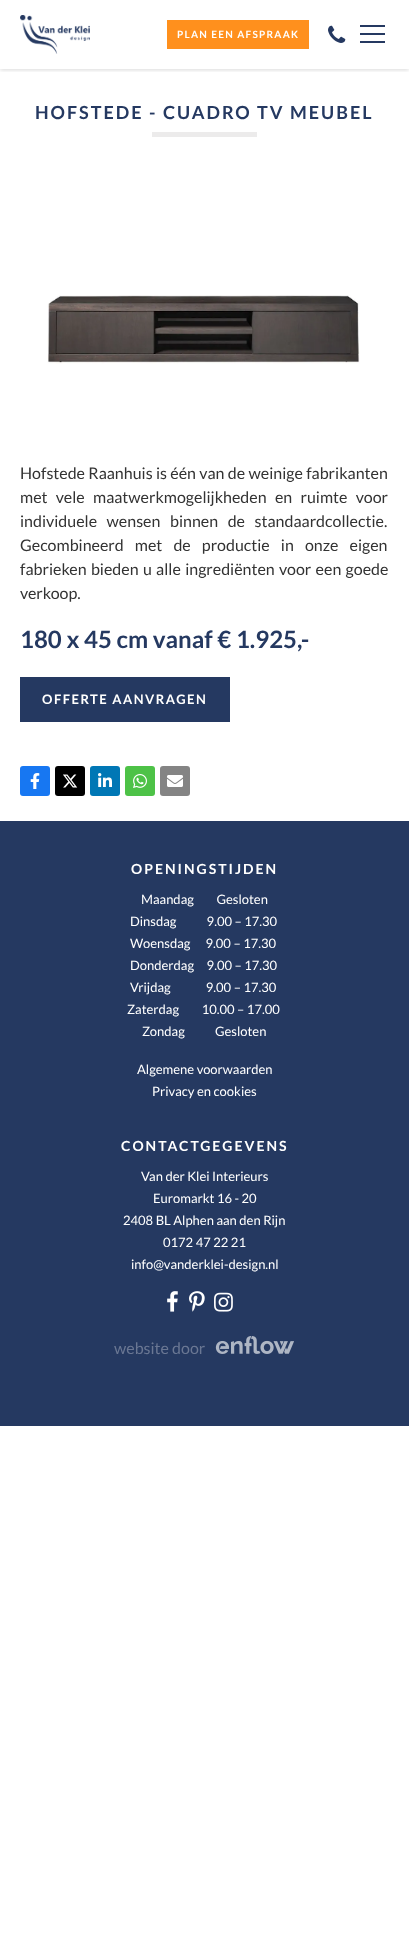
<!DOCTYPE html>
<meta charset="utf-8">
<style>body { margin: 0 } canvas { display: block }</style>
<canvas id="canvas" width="409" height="1950"></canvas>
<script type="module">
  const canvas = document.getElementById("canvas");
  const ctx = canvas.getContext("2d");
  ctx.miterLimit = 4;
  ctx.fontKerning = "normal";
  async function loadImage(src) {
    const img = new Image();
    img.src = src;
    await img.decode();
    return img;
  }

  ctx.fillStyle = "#ffffff";
  ctx.fillRect(0, 0, 409, 1950);
  ctx.drawImage(await loadImage("img2.png"), 328, 25, 18, 18);
  ctx.save();
  ctx.beginPath();
  ctx.rect(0, 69, 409, 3);
  ctx.clip();
  ctx.fillStyle = "rgba(0, 0, 0, 0.15)";
  ctx.filter = "blur(2px)";
  ctx.beginPath();
  ctx.rect(0, 1, 409, 69);
  ctx.fill();
  ctx.filter = "none";
  ctx.restore();
  ctx.drawImage(await loadImage("img1.png"), 20, 15, 70, 39);
  ctx.fillStyle = "#ff901d";
  ctx.fillRect(167, 20, 142, 29);
  ctx.letterSpacing = "1.25px";
  ctx.font = "bold 10px Lato";
  ctx.fillStyle = "#ffffff";
  ctx.fillText("PLAN EEN AFSPRAAK", 177, 38);
  ctx.fillStyle = "#253961";
  ctx.fillRect(360, 33, 25, 2);
  ctx.fillRect(360, 25, 25, 2);
  ctx.fillRect(360, 41, 25, 2);
  ctx.letterSpacing = "2px";
  ctx.font = "bold 18px Lato";
  ctx.fillText("HOFSTEDE - CUADRO TV MEUBEL", 35, 119);
  ctx.fillStyle = "#ecebeb";
  ctx.fillRect(152, 132, 105, 5);
  ctx.drawImage(await loadImage("img3.png"), 47, 295, 313, 69);
  ctx.letterSpacing = "0px";
  ctx.wordSpacing = "0.25px";
  ctx.font = "16px Lato";
  ctx.fillStyle = "#333333";
  ctx.fillText("Hofstede Raanhuis is één van de weinige fabrikanten", 20, 479);
  ctx.wordSpacing = "5.25px";
  ctx.fillText("met vele maatwerkmogelijkheden en ruimte voor", 20, 503);
  ctx.wordSpacing = "6.5px";
  ctx.fillText("individuele wensen binnen de standaardcollectie.", 20, 527);
  ctx.wordSpacing = "8px";
  ctx.fillText("Gecombineerd met de productie in onze eigen", 20, 551);
  ctx.wordSpacing = "1.25px";
  ctx.fillText("fabrieken bieden u alle ingrediënten voor een goede", 20, 575);
  ctx.wordSpacing = "0px";
  ctx.fillText("verkoop.", 20, 599);
  ctx.font = "bold 24px Lato";
  ctx.fillStyle = "#253961";
  ctx.fillText("180 x 45 cm vanaf € 1.925,-", 20, 648);
  ctx.fillRect(20, 677, 210, 45);
  ctx.letterSpacing = "1.5px";
  ctx.font = "bold 13px Lato";
  ctx.fillStyle = "#ffffff";
  ctx.fillText("OFFERTE AANVRAGEN", 42, 704);
  ctx.fillStyle = "#1777f2";
  ctx.beginPath();
  ctx.roundRect(20, 766, 30, 30, 3);
  ctx.fill();
  ctx.drawImage(await loadImage("img4.png"), 30, 773, 10, 16);
  ctx.fillStyle = "#000000";
  ctx.beginPath();
  ctx.roundRect(55, 766, 30, 30, 3);
  ctx.fill();
  ctx.drawImage(await loadImage("img5.png"), 63, 774, 15, 14);
  ctx.fillStyle = "#0077b5";
  ctx.beginPath();
  ctx.roundRect(90, 766, 30, 30, 3);
  ctx.fill();
  ctx.drawImage(await loadImage("img6.png"), 98, 773, 14, 14);
  ctx.fillStyle = "#4dc247";
  ctx.beginPath();
  ctx.roundRect(125, 766, 30, 30, 3);
  ctx.fill();
  ctx.drawImage(await loadImage("img7.png"), 133, 774, 14, 14);
  ctx.fillStyle = "#848484";
  ctx.beginPath();
  ctx.roundRect(160, 766, 30, 30, 3);
  ctx.fill();
  ctx.drawImage(await loadImage("img8.png"), 167, 775, 16, 12);
  ctx.fillStyle = "#253961";
  ctx.fillRect(0, 821, 409, 605);
  ctx.letterSpacing = "2px";
  ctx.font = "bold 14px Lato";
  ctx.fillStyle = "#ffffff";
  ctx.fillText("OPENINGSTIJDEN", 131, 874);
  ctx.letterSpacing = "0px";
  ctx.font = "13px Lato";
  ctx.fillText("Maandag         Gesloten", 141, 904);
  ctx.fillText("Dinsdag            9.00 – 17.30", 130, 926);
  ctx.fillText("Woensdag      9.00 – 17.30", 130, 948);
  ctx.fillText("Donderdag     9.00 – 17.30", 130, 970);
  ctx.fillText("Vrijdag              9.00 – 17.30", 130, 992);
  ctx.fillText("Zaterdag         10.00 – 17.00", 127, 1014);
  ctx.fillText("Zondag            Gesloten", 142, 1036);
  ctx.fillText("Algemene voorwaarden", 137, 1074);
  ctx.fillText("Privacy en cookies", 152, 1096);
  ctx.letterSpacing = "2px";
  ctx.font = "bold 14px Lato";
  ctx.fillText("CONTACTGEGEVENS", 121, 1151);
  ctx.letterSpacing = "0px";
  ctx.font = "13px Lato";
  ctx.fillText("Van der Klei Interieurs", 141, 1181);
  ctx.fillText("Euromarkt 16 - 20", 153, 1203);
  ctx.fillText("2408 BL Alphen aan den Rijn", 123, 1225);
  ctx.fillText("0172 47 22 21", 163, 1247);
  ctx.fillText("info@vanderklei-design.nl", 131, 1269);
  ctx.drawImage(await loadImage("img9.png"), 167, 1291, 11, 21);
  ctx.drawImage(await loadImage("img10.png"), 189, 1291, 16, 21);
  ctx.drawImage(await loadImage("img11.png"), 214, 1292, 19, 20);
  ctx.font = "16px Lato";
  ctx.fillStyle = "#6a7793";
  ctx.fillText("website door", 114, 1354);
  ctx.drawImage(await loadImage("img12.png"), 215, 1336, 79, 18);
</script>
